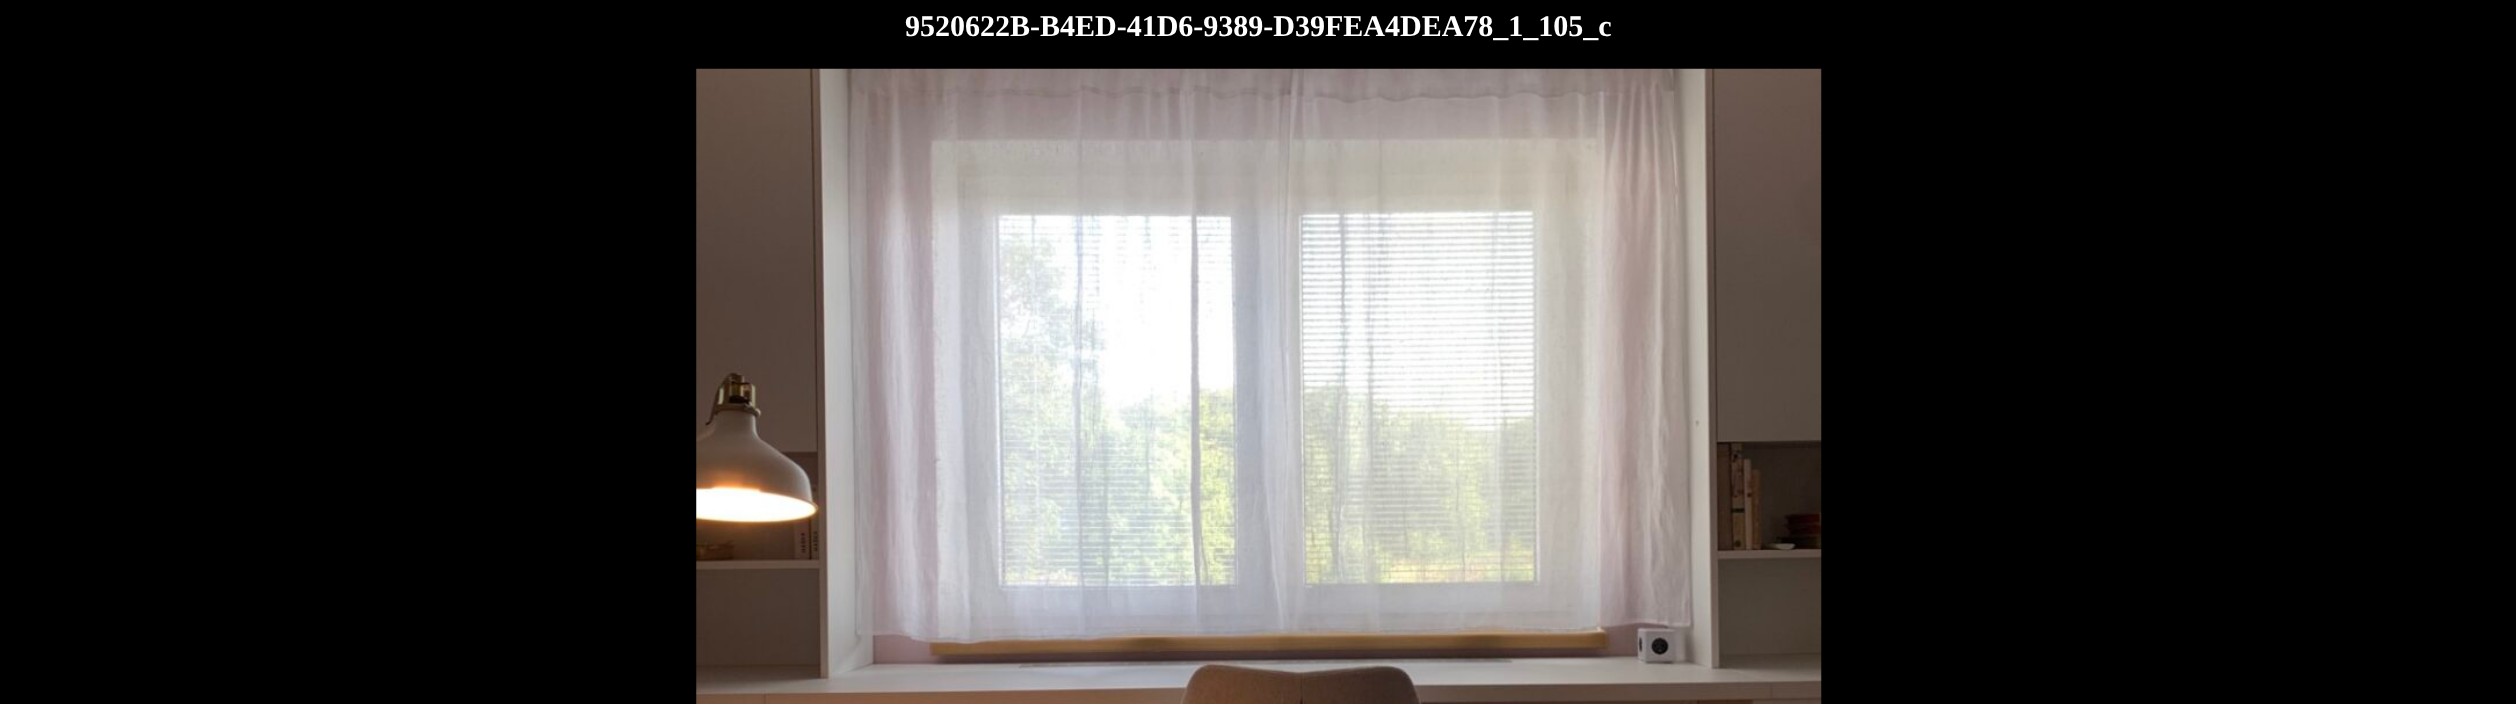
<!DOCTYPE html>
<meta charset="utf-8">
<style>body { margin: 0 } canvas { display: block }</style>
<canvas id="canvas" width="2516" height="704"></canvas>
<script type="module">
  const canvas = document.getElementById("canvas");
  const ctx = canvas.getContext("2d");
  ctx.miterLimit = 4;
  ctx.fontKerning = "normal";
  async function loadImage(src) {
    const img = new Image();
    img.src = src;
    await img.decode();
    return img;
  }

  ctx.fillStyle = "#000000";
  ctx.fillRect(0, 0, 2516, 704);
  ctx.font = "bold 30px Liberation Serif";
  ctx.fillStyle = "#ffffff";
  ctx.fillText("9520622B-B4ED-41D6-9389-D39FEA4DEA78_1_105_c", 905, 36);
  ctx.drawImage(await loadImage("img1.png"), 696, 68, 1126, 636);
</script>
